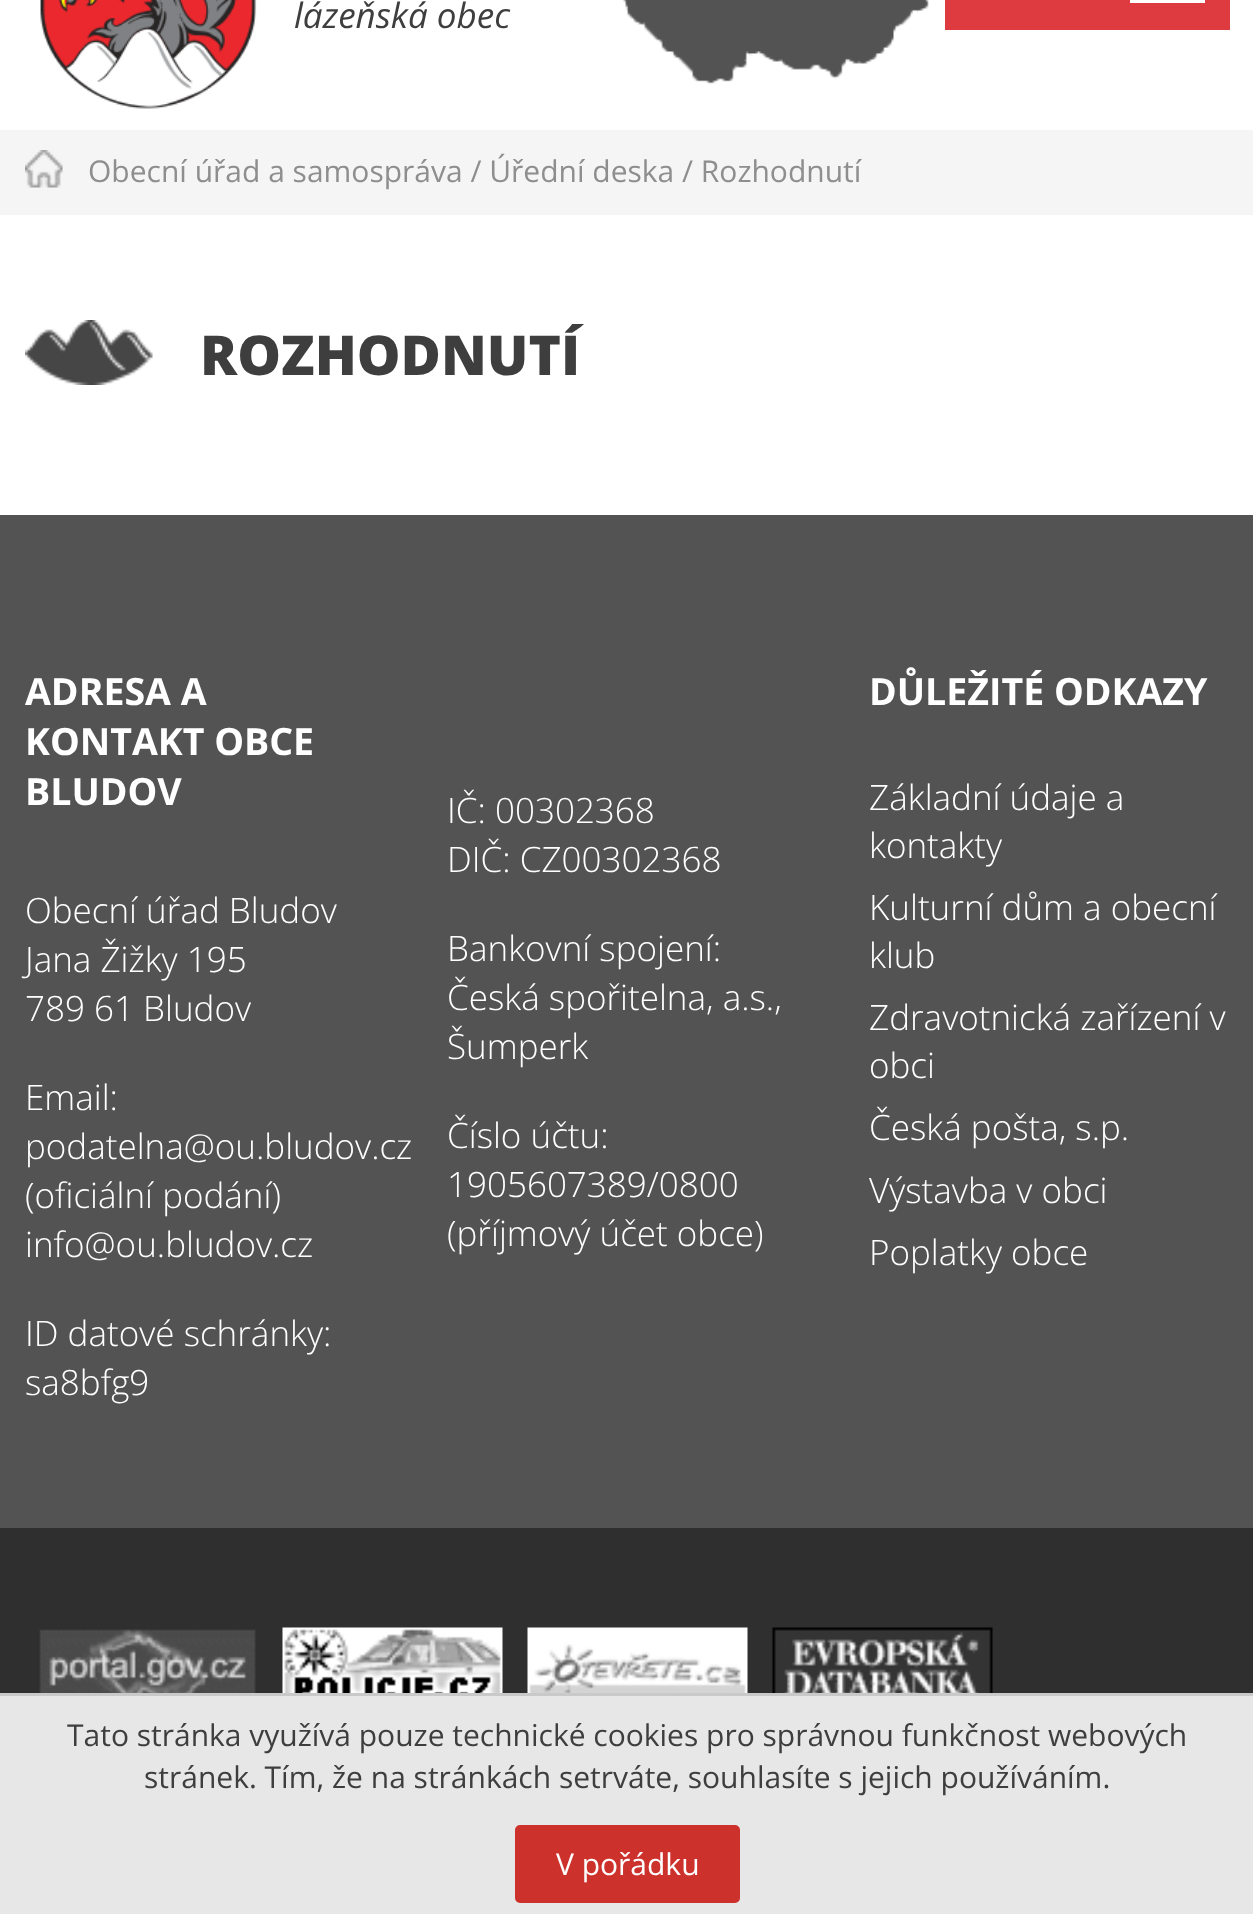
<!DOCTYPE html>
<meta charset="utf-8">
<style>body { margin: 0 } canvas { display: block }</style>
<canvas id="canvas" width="1253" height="1914"></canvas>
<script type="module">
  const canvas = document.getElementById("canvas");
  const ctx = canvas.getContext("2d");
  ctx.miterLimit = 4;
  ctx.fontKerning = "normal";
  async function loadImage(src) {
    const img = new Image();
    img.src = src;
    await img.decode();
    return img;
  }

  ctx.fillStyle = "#ffffff";
  ctx.fillRect(0, 0, 1253, 1914);
  ctx.drawImage(await loadImage("img1.png"), 40, 0, 217, 109);
  ctx.font = "italic 35px Open Sans";
  ctx.fillStyle = "#3e3e3e";
  ctx.fillText("lázeňská obec", 294, 28);
  ctx.drawImage(await loadImage("img2.png"), 623, 0, 306, 84);
  ctx.fillStyle = "#de3b40";
  ctx.fillRect(945, 0, 285, 30);
  ctx.fillStyle = "#ffffff";
  ctx.fillRect(1130, 0, 75, 3);
  ctx.fillStyle = "#f5f5f5";
  ctx.fillRect(0, 130, 1253, 85);
  ctx.drawImage(await loadImage("img3.png"), 25, 150, 38, 38);
  ctx.font = "30px Open Sans";
  ctx.fillStyle = "#8e8e8e";
  ctx.fillText("Obecní úřad a samospráva / Úřední deska / Rozhodnutí", 88, 182);
  ctx.drawImage(await loadImage("img4.png"), 25, 320, 128, 65);
  ctx.font = "800 55px Open Sans";
  ctx.fillStyle = "#3e3e3e";
  ctx.fillText("ROZHODNUTÍ", 200, 375);
  ctx.fillStyle = "#535353";
  ctx.fillRect(0, 515, 1253, 1013);
  ctx.font = "bold 37.5px Open Sans";
  ctx.fillStyle = "#ffffff";
  ctx.fillText("ADRESA A", 25, 705);
  ctx.fillText("KONTAKT OBCE", 25, 755);
  ctx.fillText("BLUDOV", 25, 805);
  ctx.font = "300 35px Open Sans";
  ctx.fillText("Obecní úřad Bludov", 25, 923);
  ctx.fillText("Jana Žižky 195", 25, 972);
  ctx.fillText("789 61 Bludov", 25, 1021);
  ctx.fillText("Email:", 25, 1110);
  ctx.fillText("podatelna@ou.bludov.cz", 25, 1159);
  ctx.fillText("(oficiální podání)", 25, 1208);
  ctx.fillText("info@ou.bludov.cz", 25, 1257);
  ctx.fillText("ID datové schránky:", 25, 1346);
  ctx.fillText("sa8bfg9", 25, 1395);
  ctx.fillText("IČ: 00302368", 447, 823);
  ctx.fillText("DIČ: CZ00302368", 447, 872);
  ctx.fillText("Bankovní spojení:", 447, 961);
  ctx.fillText("Česká spořitelna, a.s.,", 447, 1010);
  ctx.fillText("Šumperk", 447, 1059);
  ctx.fillText("Číslo účtu:", 447, 1148);
  ctx.fillText("1905607389/0800", 447, 1197);
  ctx.fillText("(příjmový účet obce)", 447, 1246);
  ctx.font = "bold 37.5px Open Sans";
  ctx.fillText("DŮLEŽITÉ ODKAZY", 869, 705);
  ctx.font = "300 35px Open Sans";
  ctx.fillText("Základní údaje a", 869, 810);
  ctx.fillText("kontakty", 869, 858);
  ctx.fillText("Kulturní dům a obecní", 869, 920);
  ctx.fillText("klub", 869, 968);
  ctx.fillText("Zdravotnická zařízení v", 869, 1030);
  ctx.fillText("obci", 869, 1078);
  ctx.fillText("Česká pošta, s.p.", 869, 1140);
  ctx.fillText("Výstavba v obci", 869, 1203);
  ctx.fillText("Poplatky obce", 869, 1265);
  ctx.fillStyle = "#2f2f2f";
  ctx.fillRect(0, 1528, 1253, 165);
  ctx.drawImage(await loadImage("img5.png"), 39, 1629, 217, 64);
  ctx.drawImage(await loadImage("img6.png"), 282, 1627, 221, 66);
  ctx.drawImage(await loadImage("img7.png"), 527, 1627, 221, 66);
  ctx.drawImage(await loadImage("img8.png"), 772, 1627, 221, 66);
  ctx.fillStyle = "#e7e7e7";
  ctx.fillRect(0, 1696, 1253, 218);
  ctx.fillStyle = "#c9c9c9";
  ctx.fillRect(0, 1693, 1253, 3);
  ctx.font = "30px Open Sans";
  ctx.fillStyle = "#3e3e3e";
  ctx.fillText("Tato stránka využívá pouze technické cookies pro správnou funkčnost webových", 67, 1746);
  ctx.fillText("stránek. Tím, že na stránkách setrváte, souhlasíte s jejich používáním.", 144, 1788);
  ctx.fillStyle = "#cd312c";
  ctx.beginPath();
  ctx.roundRect(516.5, 1826.5, 222, 75, 3.5);
  ctx.fill();
  ctx.strokeStyle = "#cd312c";
  ctx.lineWidth = 3;
  ctx.stroke();
  ctx.fillStyle = "#ffffff";
  ctx.fillText("V pořádku", 556, 1875);
</script>
